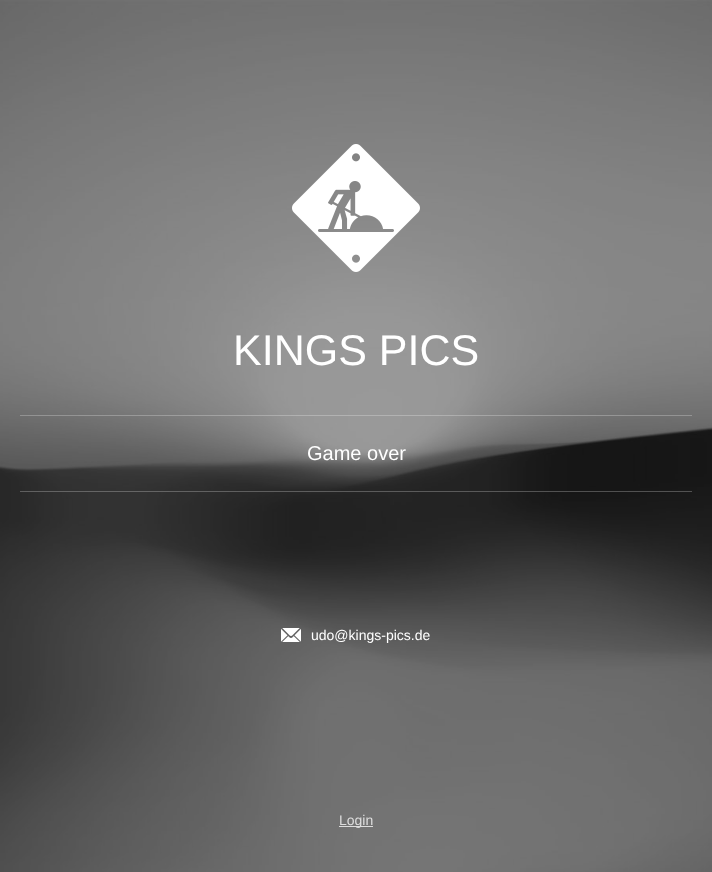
<!DOCTYPE html>
<meta charset="utf-8">
<style>body { margin: 0 } canvas { display: block }</style>
<canvas id="canvas" width="712" height="872"></canvas>
<script type="module">
  const canvas = document.getElementById("canvas");
  const ctx = canvas.getContext("2d");
  ctx.miterLimit = 4;
  ctx.fontKerning = "normal";
  async function loadImage(src) {
    const img = new Image();
    img.src = src;
    await img.decode();
    return img;
  }

  ctx.fillStyle = "#ffffff";
  ctx.fillRect(0, 0, 712, 872);
  ctx.drawImage(await loadImage("img1.png"), 0, 0, 712, 872);
  ctx.drawImage(await loadImage("img2.png"), 292, 144, 128, 128);
  ctx.font = "43px Liberation Sans";
  ctx.fillText("KINGS PICS", 233, 365);
  ctx.fillStyle = "rgba(255, 255, 255, 0.25)";
  ctx.fillRect(20, 415, 672, 1);
  ctx.fillRect(20, 491, 672, 1);
  ctx.font = "20px Liberation Sans";
  ctx.fillStyle = "#ffffff";
  ctx.fillText("Game over", 307, 460);
  ctx.drawImage(await loadImage("img3.png"), 281, 628, 20, 14);
  ctx.font = "14px Liberation Sans";
  ctx.fillText("udo@kings-pics.de", 311, 640);
  ctx.fillStyle = "#dddddd";
  ctx.fillRect(339, 826, 34, 1);
  ctx.fillText("Login", 339, 825);
</script>
